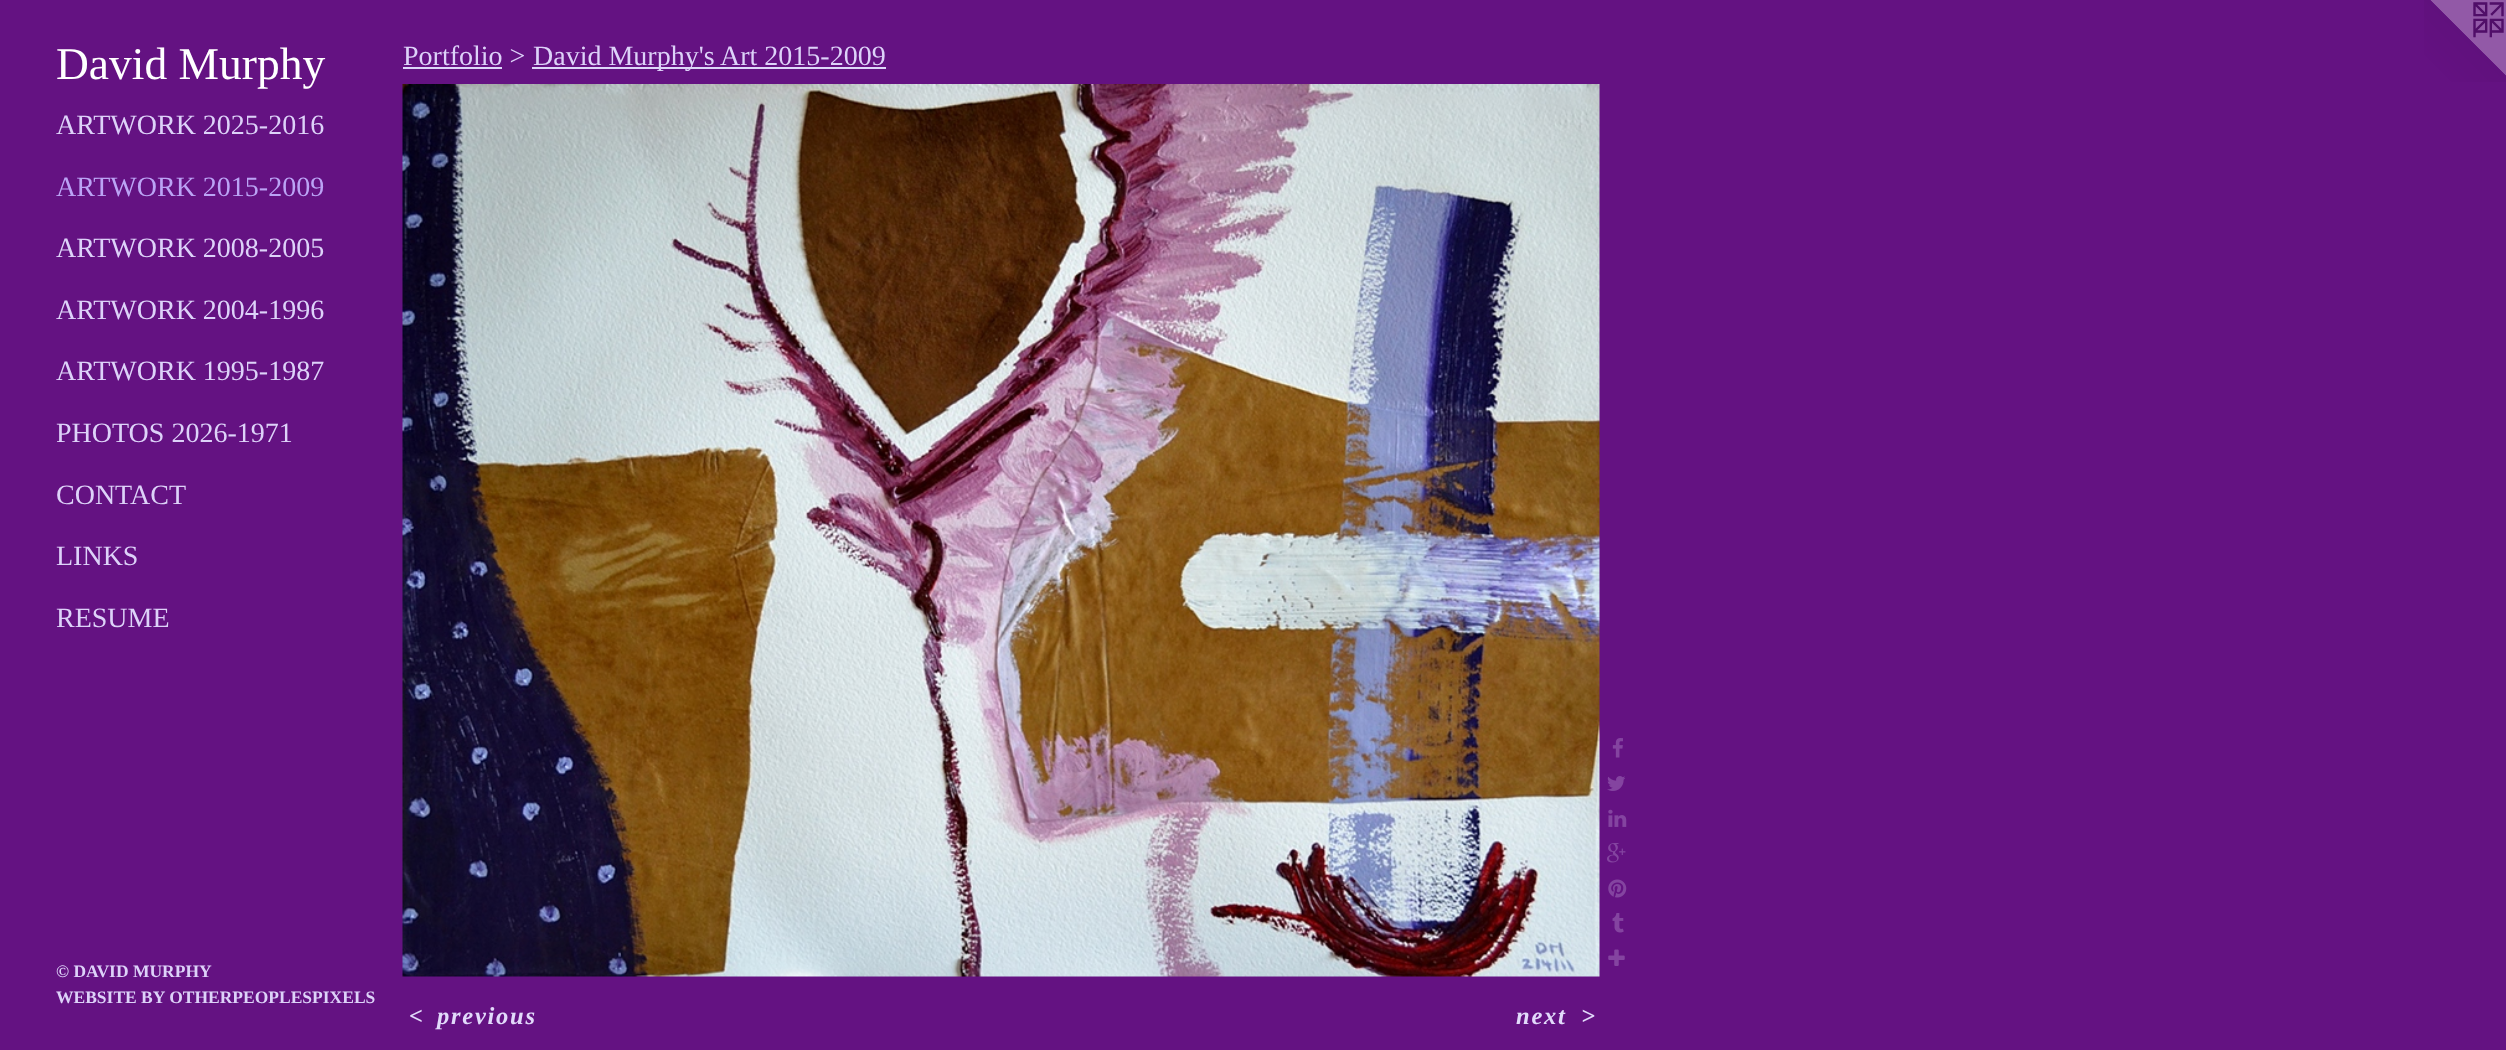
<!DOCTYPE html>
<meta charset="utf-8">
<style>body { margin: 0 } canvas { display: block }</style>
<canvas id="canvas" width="2506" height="1050"></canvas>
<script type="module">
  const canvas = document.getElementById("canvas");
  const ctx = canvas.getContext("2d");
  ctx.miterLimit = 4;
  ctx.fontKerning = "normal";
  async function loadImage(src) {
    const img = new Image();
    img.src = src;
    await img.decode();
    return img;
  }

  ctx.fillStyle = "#641282";
  ctx.fillRect(0, 0, 2506, 1050);
  ctx.font = "45.5px Liberation Serif";
  ctx.fillStyle = "#ffffff";
  ctx.fillText("David Murphy", 56, 79);
  ctx.font = "28px Liberation Serif";
  ctx.fillStyle = "#ddd2f9";
  ctx.fillText("ARTWORK 2025-2016", 56, 134);
  ctx.fillStyle = "#bba3f5";
  ctx.fillText("ARTWORK 2015-2009", 56, 196);
  ctx.fillStyle = "#ddd2f9";
  ctx.fillText("ARTWORK 2008-2005", 56, 257);
  ctx.fillText("ARTWORK 2004-1996", 56, 319);
  ctx.fillText("ARTWORK 1995-1987", 56, 380);
  ctx.fillText("PHOTOS 2026-1971", 56, 442);
  ctx.fillText("CONTACT", 56, 504);
  ctx.fillText("LINKS", 56, 565);
  ctx.fillText("RESUME", 56, 627);
  ctx.font = "bold 17.5px Liberation Serif";
  ctx.fillText("© DAVID MURPHY", 56, 977);
  ctx.fillText("WEBSITE BY OTHERPEOPLESPIXELS", 56, 1003);
  ctx.font = "28px Liberation Serif";
  ctx.fillText("Portfolio >", 403, 65);
  ctx.fillStyle = "#ddd7f9";
  ctx.fillRect(403, 67, 99, 2);
  ctx.fillRect(532, 67, 354, 2);
  ctx.fillStyle = "#ddd2f9";
  ctx.fillText("David Murphy's Art 2015-2009", 533, 65);
  ctx.drawImage(await loadImage("img1.png"), 402, 84, 1198, 893);
  ctx.drawImage(await loadImage("img2.png"), 1612, 738, 11, 20);
  ctx.drawImage(await loadImage("img3.png"), 1607, 776, 18, 15);
  ctx.drawImage(await loadImage("img4.png"), 1608, 809, 19, 18);
  ctx.drawImage(await loadImage("img5.png"), 1607, 843, 19, 20);
  ctx.drawImage(await loadImage("img6.png"), 1608, 879, 19, 19);
  ctx.drawImage(await loadImage("img7.png"), 1612, 913, 12, 20);
  ctx.drawImage(await loadImage("img8.png"), 1608, 949, 17, 17);
  ctx.letterSpacing = "1.75px";
  ctx.font = "italic bold 24.5px Liberation Serif";
  ctx.fillStyle = "#e2dafb";
  ctx.fillText("<", 409, 1024);
  ctx.fillText("previous", 437, 1024);
  ctx.fillText("next", 1516, 1024);
  ctx.fillText(">", 1581, 1024);
  ctx.drawImage(await loadImage("img9.png"), 2424, 0, 82, 82);
</script>
